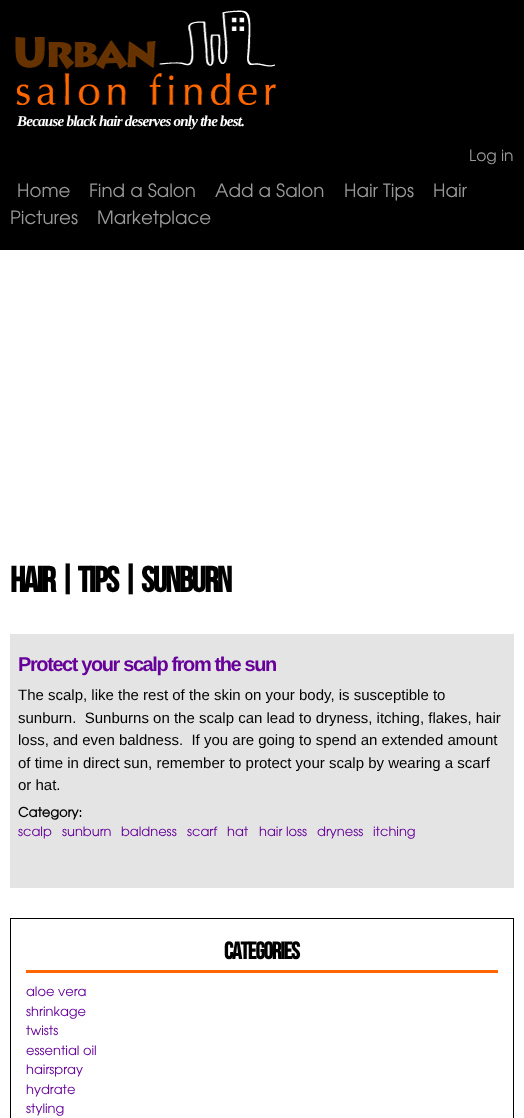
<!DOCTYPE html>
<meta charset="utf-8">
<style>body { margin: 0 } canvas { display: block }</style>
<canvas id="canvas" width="524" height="1118"></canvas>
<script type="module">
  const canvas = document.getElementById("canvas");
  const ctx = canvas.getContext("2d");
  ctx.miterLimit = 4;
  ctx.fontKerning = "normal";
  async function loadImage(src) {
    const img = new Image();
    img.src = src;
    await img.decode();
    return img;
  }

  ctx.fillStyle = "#ffffff";
  ctx.fillRect(0, 0, 524, 1118);
  ctx.fillStyle = "#000000";
  ctx.fillRect(0, 0, 524, 250);
  ctx.drawImage(await loadImage("img1.png"), 15, 10, 261, 95);
  ctx.letterSpacing = "-0.75px";
  ctx.font = "italic bold 15px Liberation Serif";
  ctx.fillStyle = "#ffffff";
  ctx.fillText("Because black hair deserves only the best.", 17, 126);
  ctx.letterSpacing = "0px";
  ctx.font = "15.5px TeX Gyre Adventor";
  ctx.fillStyle = "#999999";
  ctx.fillText("Log in", 469, 161);
  ctx.font = "18.25px TeX Gyre Adventor";
  ctx.fillText("Home", 17, 197);
  ctx.fillText("Find a Salon", 89, 197);
  ctx.fillText("Add a Salon", 215, 197);
  ctx.fillText("Hair Tips", 344, 197);
  ctx.fillText("Hair", 433, 197);
  ctx.fillText("Pictures", 10, 224);
  ctx.fillText("Marketplace", 97, 224);
  ctx.letterSpacing = "-1.8px";
  ctx.font = "bold 36px Bebas Neue";
  ctx.fillStyle = "#000000";
  ctx.fillText("Hair | Tips | sunburn", 10, 592);
  ctx.fillStyle = "#e4e4e4";
  ctx.fillRect(10, 634, 504, 254);
  ctx.letterSpacing = "-1.4px";
  ctx.font = "bold 20px Liberation Sans";
  ctx.fillStyle = "#660099";
  ctx.fillText("Protect your scalp from the sun", 18, 671);
  ctx.letterSpacing = "0px";
  ctx.font = "15px Liberation Sans";
  ctx.fillStyle = "#000000";
  ctx.fillText("The scalp, like the rest of the skin on your body, is susceptible to", 18, 700);
  ctx.fillText("sunburn.  Sunburns on the scalp can lead to dryness, itching, flakes, hair", 18, 723);
  ctx.fillText("loss, and even baldness.  If you are going to spend an extended amount", 18, 745);
  ctx.fillText("of time in direct sun, remember to protect your scalp by wearing a scarf", 18, 768);
  ctx.fillText("or hat.", 18, 790);
  ctx.font = "bold 13px TeX Gyre Adventor";
  ctx.fillText("Category:", 18, 817);
  ctx.font = "13px TeX Gyre Adventor";
  ctx.fillStyle = "#660099";
  ctx.fillText("scalp", 18, 836);
  ctx.fillText("sunburn", 62, 836);
  ctx.fillText("baldness", 121, 836);
  ctx.fillText("scarf", 187, 836);
  ctx.fillText("hat", 227, 836);
  ctx.fillText("hair loss", 259, 836);
  ctx.fillText("dryness", 317, 836);
  ctx.fillText("itching", 373, 836);
  ctx.strokeStyle = "#000000";
  ctx.strokeRect(10.5, 918.5, 503, 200);
  ctx.fillStyle = "#ff6600";
  ctx.fillRect(26, 970, 472, 3);
  ctx.letterSpacing = "-1.25px";
  ctx.font = "bold 24px Bebas Neue";
  ctx.fillStyle = "#000000";
  ctx.fillText("Categories", 224, 959);
  ctx.letterSpacing = "0px";
  ctx.font = "13px TeX Gyre Adventor";
  ctx.fillStyle = "#660099";
  ctx.fillText("aloe vera", 26, 996);
  ctx.fillText("shrinkage", 26, 1016);
  ctx.fillText("twists", 26, 1035);
  ctx.fillText("essential oil", 26, 1055);
  ctx.fillText("hairspray", 26, 1074);
  ctx.fillText("hydrate", 26, 1094);
  ctx.fillText("styling", 26, 1113);
</script>
